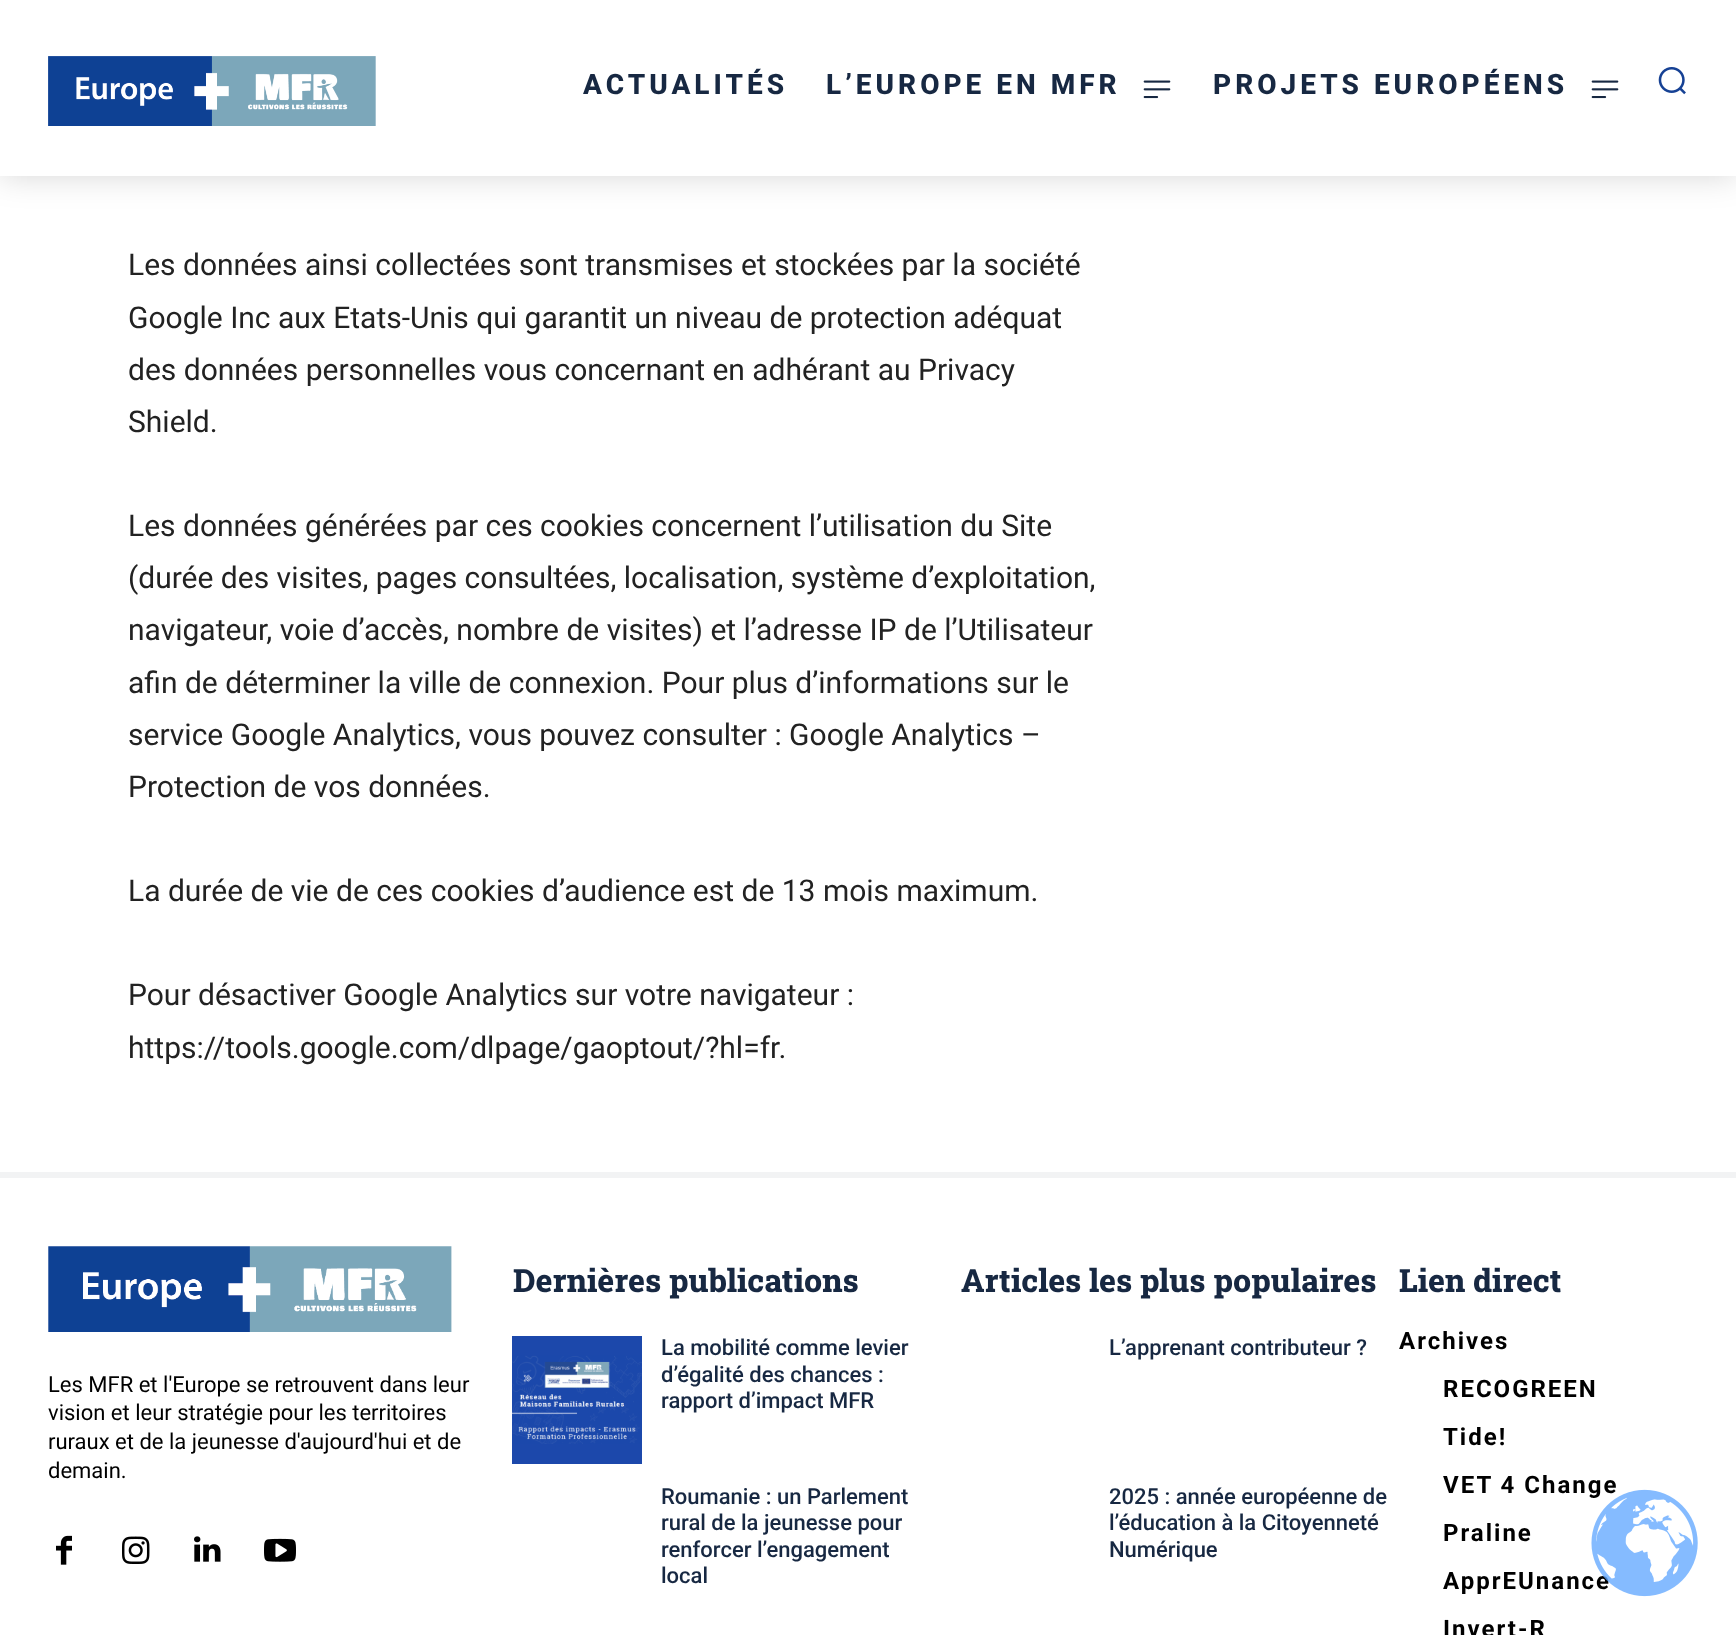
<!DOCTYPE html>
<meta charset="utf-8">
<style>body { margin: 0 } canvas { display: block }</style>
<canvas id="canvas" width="1736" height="1635"></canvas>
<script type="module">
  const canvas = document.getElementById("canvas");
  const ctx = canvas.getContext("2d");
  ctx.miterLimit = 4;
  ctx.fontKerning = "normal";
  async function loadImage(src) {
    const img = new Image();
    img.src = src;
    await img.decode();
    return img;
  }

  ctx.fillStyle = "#ffffff";
  ctx.fillRect(0, 0, 1736, 1635);
  ctx.fillStyle = "rgba(0, 0, 0, 0.16)";
  ctx.filter = "blur(16px)";
  ctx.beginPath();
  ctx.rect(0, 0, 1736, 176);
  ctx.fill();
  ctx.filter = "none";
  ctx.fillStyle = "#ffffff";
  ctx.fillRect(0, 0, 1736, 176);
  ctx.drawImage(await loadImage("img1.png"), 48, 56, 328, 70);
  ctx.letterSpacing = "4px";
  ctx.font = "800 28px Roboto";
  ctx.fillStyle = "#172842";
  ctx.fillText("ACTUALITÉS", 583, 94);
  ctx.fillText("L’EUROPE EN MFR", 826, 94);
  ctx.drawImage(await loadImage("img2.png"), 1143, 80, 28, 19);
  ctx.fillText("PROJETS EUROPÉENS", 1213, 94);
  ctx.drawImage(await loadImage("img2.png"), 1591, 80, 28, 19);
  ctx.drawImage(await loadImage("img3.png"), 1658, 67, 28, 28);
  ctx.letterSpacing = "0px";
  ctx.font = "30px Roboto";
  ctx.fillStyle = "#222222";
  ctx.fillText("Les données ainsi collectées sont transmises et stockées par la société", 128, 275);
  ctx.fillText("Google Inc aux Etats-Unis qui garantit un niveau de protection adéquat", 128, 328);
  ctx.fillText("des données personnelles vous concernant en adhérant au Privacy", 128, 380);
  ctx.fillText("Shield.", 128, 432);
  ctx.fillText("Les données générées par ces cookies concernent l’utilisation du Site", 128, 536);
  ctx.fillText("(durée des visites, pages consultées, localisation, système d’exploitation,", 128, 588);
  ctx.fillText("navigateur, voie d’accès, nombre de visites) et l’adresse IP de l’Utilisateur", 128, 640);
  ctx.fillText("afin de déterminer la ville de connexion. Pour plus d’informations sur le", 128, 693);
  ctx.fillText("service Google Analytics, vous pouvez consulter : Google Analytics –", 128, 745);
  ctx.fillText("Protection de vos données.", 128, 797);
  ctx.fillText("La durée de vie de ces cookies d’audience est de 13 mois maximum.", 128, 901);
  ctx.fillText("Pour désactiver Google Analytics sur votre navigateur :", 128, 1005);
  ctx.fillText("https://tools.google.com/dlpage/gaoptout/?hl=fr.", 128, 1058);
  ctx.fillStyle = "#f2f3f4";
  ctx.fillRect(0, 1172, 1736, 6);
  ctx.drawImage(await loadImage("img4.png"), 48, 1246, 404, 86);
  ctx.font = "22px Roboto";
  ctx.fillStyle = "#000000";
  ctx.fillText("Les MFR et l'Europe se retrouvent dans leur", 48, 1392);
  ctx.fillText("vision et leur stratégie pour les territoires", 48, 1420);
  ctx.fillText("ruraux et de la jeunesse d'aujourd'hui et de", 48, 1449);
  ctx.fillText("demain.", 48, 1478);
  ctx.drawImage(await loadImage("img5.png"), 56, 1535, 16, 30);
  ctx.drawImage(await loadImage("img6.png"), 122, 1536, 28, 28);
  ctx.drawImage(await loadImage("img7.png"), 194, 1536, 27, 26);
  ctx.drawImage(await loadImage("img8.png"), 264, 1538, 32, 24);
  ctx.font = "800 32px Roboto Slab";
  ctx.fillStyle = "#172842";
  ctx.fillText("Dernières publications", 513, 1292);
  ctx.drawImage(await loadImage("img9.png"), 512, 1336, 130, 128);
  ctx.font = "500 22px Roboto";
  ctx.fillText("La mobilité comme levier", 661, 1355);
  ctx.fillText("d’égalité des chances :", 661, 1382);
  ctx.fillText("rapport d’impact MFR", 661, 1408);
  ctx.fillText("Roumanie : un Parlement", 661, 1504);
  ctx.fillText("rural de la jeunesse pour", 661, 1530);
  ctx.fillText("renforcer l’engagement", 661, 1557);
  ctx.fillText("local", 661, 1583);
  ctx.font = "800 32px Roboto Slab";
  ctx.fillText("Articles les plus populaires", 961, 1292);
  ctx.font = "500 22px Roboto";
  ctx.fillText("L’apprenant contributeur ?", 1109, 1355);
  ctx.fillText("2025 : année européenne de", 1109, 1504);
  ctx.fillText("l’éducation à la Citoyenneté", 1109, 1530);
  ctx.fillText("Numérique", 1109, 1557);
  ctx.font = "800 32px Roboto Slab";
  ctx.fillText("Lien direct", 1399, 1292);
  ctx.letterSpacing = "2px";
  ctx.font = "bold 24px Roboto";
  ctx.fillStyle = "#000000";
  ctx.fillText("Archives", 1399, 1349);
  ctx.fillText("RECOGREEN", 1443, 1397);
  ctx.fillText("Tide!", 1443, 1445);
  ctx.fillText("VET 4 Change", 1443, 1493);
  ctx.fillText("Praline", 1443, 1541);
  ctx.fillText("ApprEUnance", 1443, 1589);
  ctx.fillText("Invert-R", 1443, 1637);
  ctx.drawImage(await loadImage("img10.png"), 1591, 1489, 107, 108);
</script>
